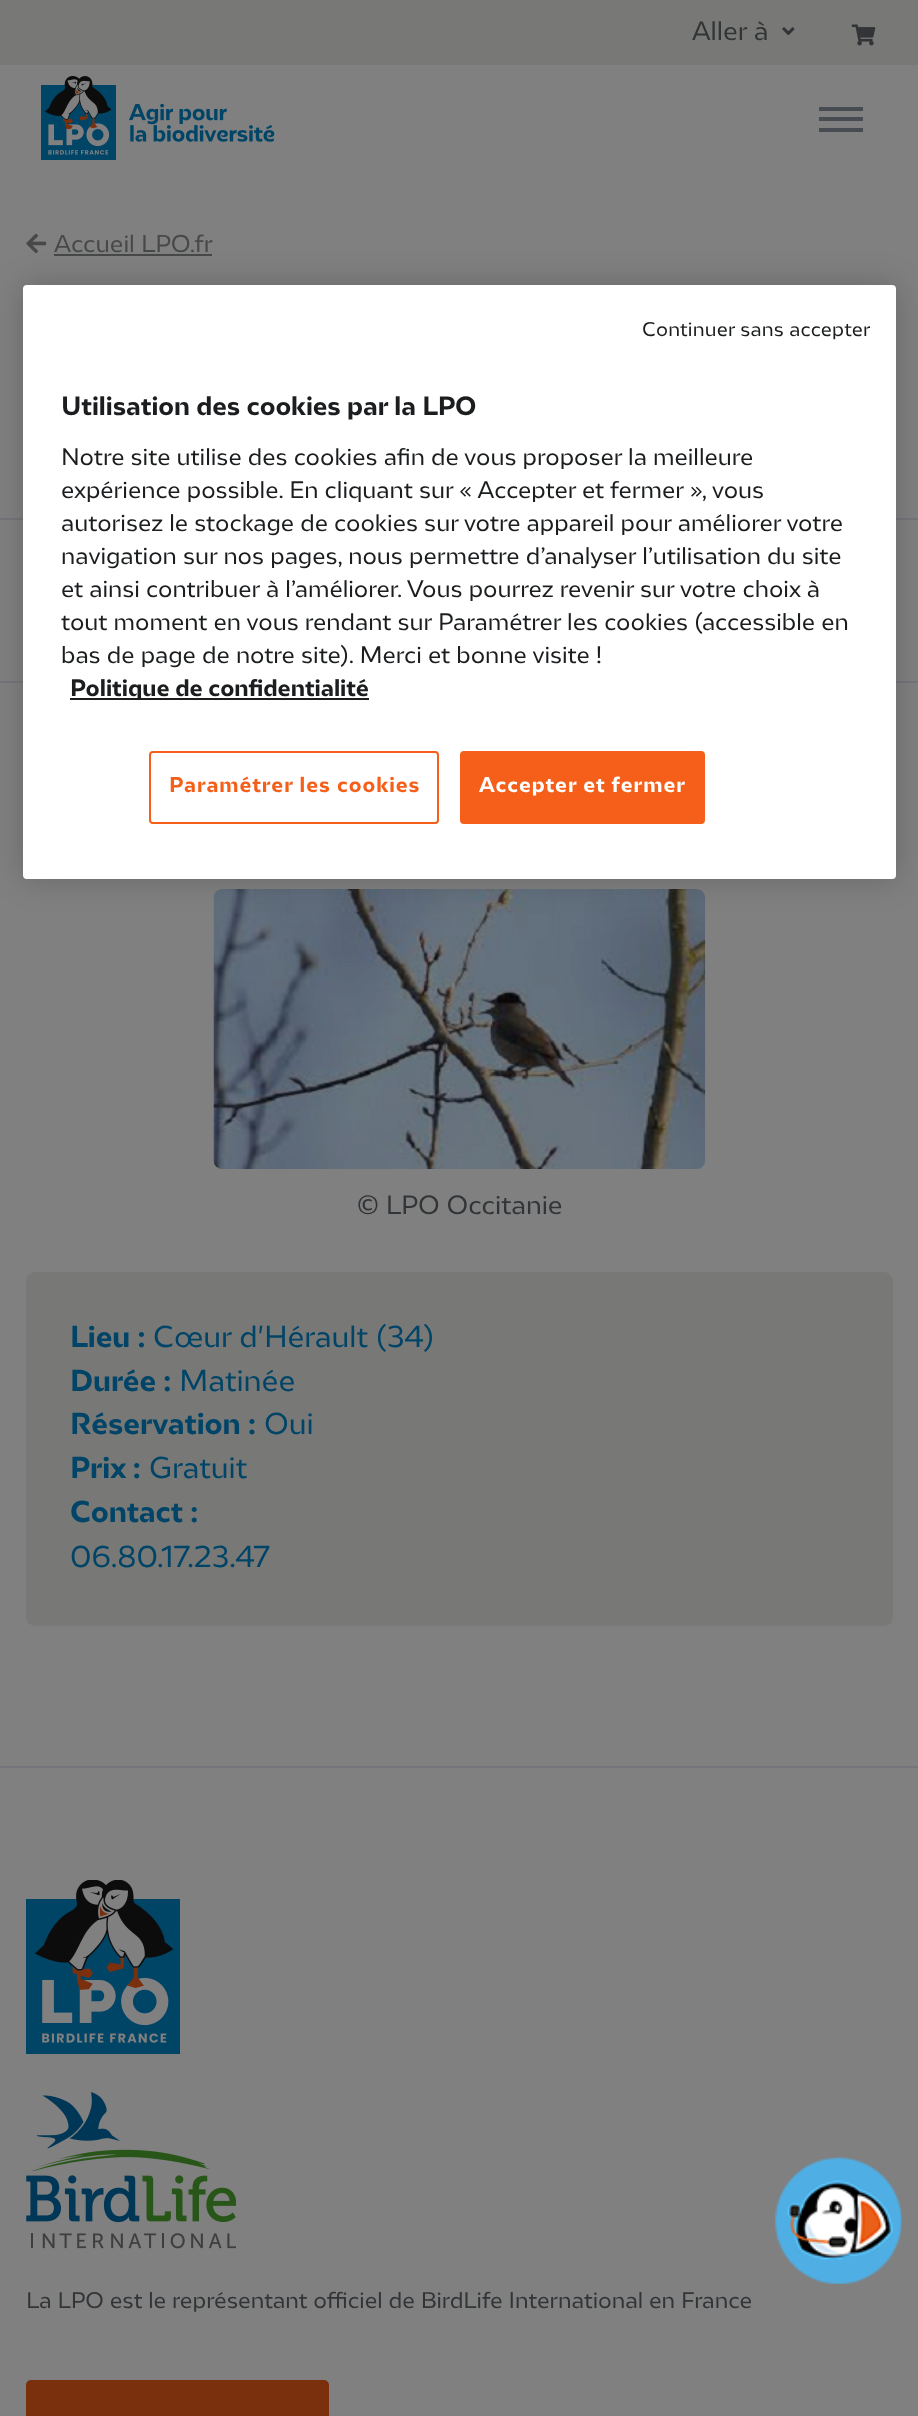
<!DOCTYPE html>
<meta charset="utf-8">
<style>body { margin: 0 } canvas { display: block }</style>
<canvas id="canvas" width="918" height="2416"></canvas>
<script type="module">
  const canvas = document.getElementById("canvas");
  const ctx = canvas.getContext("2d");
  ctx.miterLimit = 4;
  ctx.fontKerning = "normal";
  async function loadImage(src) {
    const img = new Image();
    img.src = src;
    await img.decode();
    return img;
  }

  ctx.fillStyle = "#808080";
  ctx.fillRect(0, 0, 918, 2416);
  ctx.fillStyle = "#787876";
  ctx.fillRect(0, 0, 918, 65);
  ctx.font = "24.5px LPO";
  ctx.fillStyle = "#323537";
  ctx.fillText("Aller à", 692, 40);
  ctx.drawImage(await loadImage("img1.png"), 782, 27, 13, 8);
  ctx.drawImage(await loadImage("img2.png"), 851, 24, 25, 22);
  ctx.drawImage(await loadImage("img3.png"), 41, 76, 234, 84);
  ctx.fillStyle = "#464c52";
  ctx.fillRect(819, 107, 44, 4);
  ctx.fillRect(819, 117, 44, 4);
  ctx.fillRect(819, 128, 44, 4);
  ctx.drawImage(await loadImage("img4.png"), 26, 233, 21, 21);
  ctx.font = "22.5px LPO";
  ctx.fillStyle = "#474848";
  ctx.fillText("Accueil LPO.fr", 54, 252);
  ctx.fillRect(54, 254, 158, 2);
  ctx.fillStyle = "#74757a";
  ctx.fillRect(0, 518, 918, 2);
  ctx.fillRect(0, 681, 918, 2);
  ctx.drawImage(await loadImage("img5.png"), 213, 889, 493, 280);
  ctx.font = "24.5px LPO";
  ctx.fillStyle = "#323537";
  ctx.fillText("© LPO Occitanie", 357, 1214);
  ctx.fillStyle = "#787876";
  ctx.beginPath();
  ctx.roundRect(26, 1272, 867, 354, 9);
  ctx.fill();
  ctx.font = "bold 28px LPO";
  ctx.fillStyle = "#004467";
  ctx.fillText("Lieu :", 70, 1347);
  ctx.font = "28px LPO";
  ctx.fillText("Cœur d'Hérault (34)", 153, 1347);
  ctx.font = "bold 28px LPO";
  ctx.fillText("Durée :", 70, 1391);
  ctx.font = "28px LPO";
  ctx.fillText("Matinée", 179, 1391);
  ctx.font = "bold 28px LPO";
  ctx.fillText("Réservation :", 70, 1434);
  ctx.font = "28px LPO";
  ctx.fillText("Oui", 264, 1434);
  ctx.font = "bold 28px LPO";
  ctx.fillText("Prix :", 70, 1478);
  ctx.font = "28px LPO";
  ctx.fillText("Gratuit", 149, 1478);
  ctx.font = "bold 28px LPO";
  ctx.fillText("Contact :", 70, 1522);
  ctx.font = "28px LPO";
  ctx.fillText("06.80.17.23.47", 70, 1567);
  ctx.fillStyle = "rgba(0, 0, 0, 0.2)";
  ctx.filter = "blur(16px)";
  ctx.beginPath();
  ctx.roundRect(23, 285, 873, 594, 4);
  ctx.fill();
  ctx.filter = "none";
  ctx.fillStyle = "#ffffff";
  ctx.beginPath();
  ctx.roundRect(23, 285, 873, 594, 4);
  ctx.fill();
  ctx.letterSpacing = "0.2px";
  ctx.font = "18.4px LPO";
  ctx.fillStyle = "#1b1d1f";
  ctx.fillText("Continuer sans accepter", 642, 336);
  ctx.letterSpacing = "0px";
  ctx.font = "bold 24.5px LPO";
  ctx.fillText("Utilisation des cookies par la LPO", 61, 415);
  ctx.font = "22.05px LPO";
  ctx.fillText("Notre site utilise des cookies afin de vous proposer la meilleure", 61, 465);
  ctx.fillText("expérience possible. En cliquant sur « Accepter et fermer », vous", 61, 498);
  ctx.fillText("autorisez le stockage de cookies sur votre appareil pour améliorer votre", 61, 531);
  ctx.fillText("navigation sur nos pages, nous permettre d’analyser l’utilisation du site", 61, 564);
  ctx.fillText("et ainsi contribuer à l’améliorer. Vous pourrez revenir sur votre choix à", 61, 597);
  ctx.fillText("tout moment en vous rendant sur Paramétrer les cookies (accessible en", 61, 630);
  ctx.fillText("bas de page de notre site). Merci et bonne visite !", 61, 663);
  ctx.fillRect(70, 698, 299, 2);
  ctx.font = "bold 22.05px LPO";
  ctx.fillText("Politique de confidentialité", 70, 696);
  ctx.beginPath();
  ctx.roundRect(150, 752, 288, 71, 3);
  ctx.strokeStyle = "#f55f19";
  ctx.lineWidth = 2;
  ctx.stroke();
  ctx.letterSpacing = "1px";
  ctx.font = "bold 19.9px LPO";
  ctx.fillStyle = "#f55f19";
  ctx.fillText("Paramétrer les cookies", 169, 792);
  ctx.beginPath();
  ctx.roundRect(461, 752, 243, 71, 3);
  ctx.fill();
  ctx.stroke();
  ctx.fillStyle = "#ffffff";
  ctx.fillText("Accepter et fermer", 479, 792);
  ctx.drawImage(await loadImage("img6.png"), 775, 2157, 127, 127);
  ctx.fillStyle = "#74757a";
  ctx.fillRect(0, 1766, 918, 2);
  ctx.drawImage(await loadImage("img7.png"), 26, 1880, 154, 174);
  ctx.drawImage(await loadImage("img8.png"), 26, 2092, 210, 157);
  ctx.letterSpacing = "0px";
  ctx.font = "21px LPO";
  ctx.fillStyle = "#323537";
  ctx.fillText("La LPO est le représentant officiel de BirdLife International en France", 26, 2308);
  ctx.fillStyle = "#7b300d";
  ctx.beginPath();
  ctx.roundRect(27, 2381, 301, 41, 4);
  ctx.fill();
  ctx.strokeStyle = "#7b300d";
  ctx.stroke();
</script>
